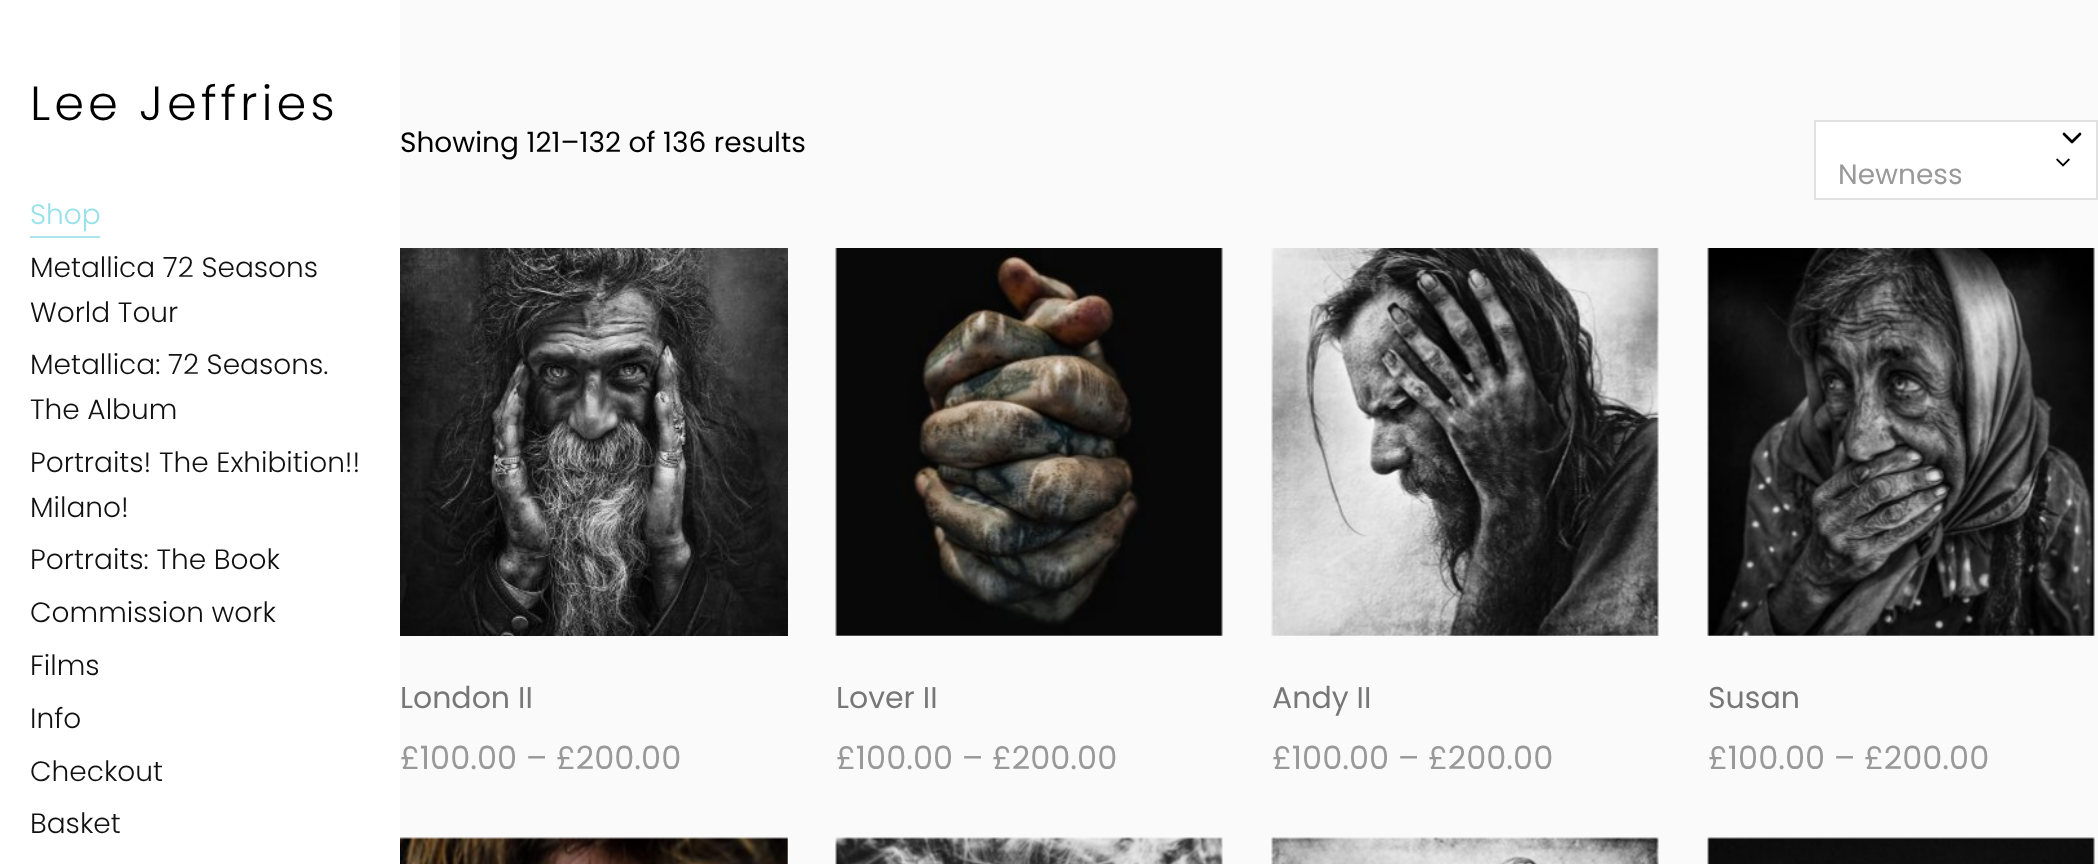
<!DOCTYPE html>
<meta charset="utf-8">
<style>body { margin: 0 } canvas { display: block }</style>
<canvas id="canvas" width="2098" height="864"></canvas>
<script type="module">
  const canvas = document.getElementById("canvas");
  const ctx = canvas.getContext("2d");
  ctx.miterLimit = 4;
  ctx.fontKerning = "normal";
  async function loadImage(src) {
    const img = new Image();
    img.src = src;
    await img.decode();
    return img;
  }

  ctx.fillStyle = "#ffffff";
  ctx.fillRect(0, 0, 2098, 864);
  ctx.letterSpacing = "4px";
  ctx.font = "300 48px Poppins";
  ctx.fillStyle = "#000000";
  ctx.fillText("Lee Jeffries", 30, 120);
  ctx.letterSpacing = "0px";
  ctx.font = "300 28px Poppins";
  ctx.fillStyle = "#96e0e9";
  ctx.fillText("Shop", 30, 224);
  ctx.fillStyle = "#abe6ed";
  ctx.fillRect(30, 236, 70, 2);
  ctx.fillStyle = "#111111";
  ctx.fillText("Metallica 72 Seasons", 30, 277);
  ctx.fillText("World Tour", 30, 322);
  ctx.fillText("Metallica: 72 Seasons.", 30, 374);
  ctx.fillText("The Album", 30, 419);
  ctx.fillText("Portraits! The Exhibition!!", 30, 472);
  ctx.fillText("Milano!", 30, 517);
  ctx.fillText("Portraits: The Book", 30, 569);
  ctx.fillText("Commission work", 30, 622);
  ctx.fillText("Films", 30, 675);
  ctx.fillText("Info", 30, 728);
  ctx.fillText("Checkout", 30, 781);
  ctx.fillText("Basket", 30, 833);
  ctx.fillStyle = "#fafafa";
  ctx.fillRect(400, 0, 1698, 864);
  ctx.font = "28px Poppins";
  ctx.fillStyle = "#000000";
  ctx.fillText("Showing 121–132 of 136 results", 400, 152);
  ctx.fillStyle = "#ffffff";
  ctx.beginPath();
  ctx.rect(1815, 121, 282, 78);
  ctx.fill();
  ctx.strokeStyle = "#e1e1e1";
  ctx.lineWidth = 2;
  ctx.stroke();
  ctx.beginPath();
  ctx.moveTo(2064, 134);
  ctx.lineTo(2072, 142);
  ctx.lineTo(2080, 134);
  ctx.strokeStyle = "#000000";
  ctx.lineWidth = 2.7;
  ctx.lineCap = "round";
  ctx.lineJoin = "round";
  ctx.stroke();
  ctx.drawImage(await loadImage("img1.png"), 2056, 158, 14, 9);
  ctx.fillStyle = "#999999";
  ctx.fillText("Newness", 1838, 184);
  ctx.drawImage(await loadImage("img2.png"), 400, 248, 388, 388);
  ctx.font = "30px Poppins";
  ctx.fillStyle = "#777777";
  ctx.fillText("London II", 400, 708);
  ctx.font = "32px Poppins";
  ctx.fillStyle = "#999999";
  ctx.fillText("£100.00 – £200.00", 400, 769);
  ctx.drawImage(await loadImage("img3.png"), 835, 248, 388, 388);
  ctx.font = "30px Poppins";
  ctx.fillStyle = "#777777";
  ctx.fillText("Lover II", 836, 708);
  ctx.font = "32px Poppins";
  ctx.fillStyle = "#999999";
  ctx.fillText("£100.00 – £200.00", 836, 769);
  ctx.drawImage(await loadImage("img4.png"), 1271, 248, 388, 388);
  ctx.font = "30px Poppins";
  ctx.fillStyle = "#777777";
  ctx.fillText("Andy II", 1272, 708);
  ctx.font = "32px Poppins";
  ctx.fillStyle = "#999999";
  ctx.fillText("£100.00 – £200.00", 1272, 769);
  ctx.drawImage(await loadImage("img5.png"), 1707, 248, 388, 388);
  ctx.font = "30px Poppins";
  ctx.fillStyle = "#777777";
  ctx.fillText("Susan", 1708, 708);
  ctx.font = "32px Poppins";
  ctx.fillStyle = "#999999";
  ctx.fillText("£100.00 – £200.00", 1708, 769);
  ctx.drawImage(await loadImage("img6.png"), 400, 837, 388, 27);
  ctx.drawImage(await loadImage("img7.png"), 835, 837, 388, 27);
  ctx.drawImage(await loadImage("img8.png"), 1271, 837, 388, 27);
  ctx.drawImage(await loadImage("img9.png"), 1707, 837, 388, 27);
</script>
